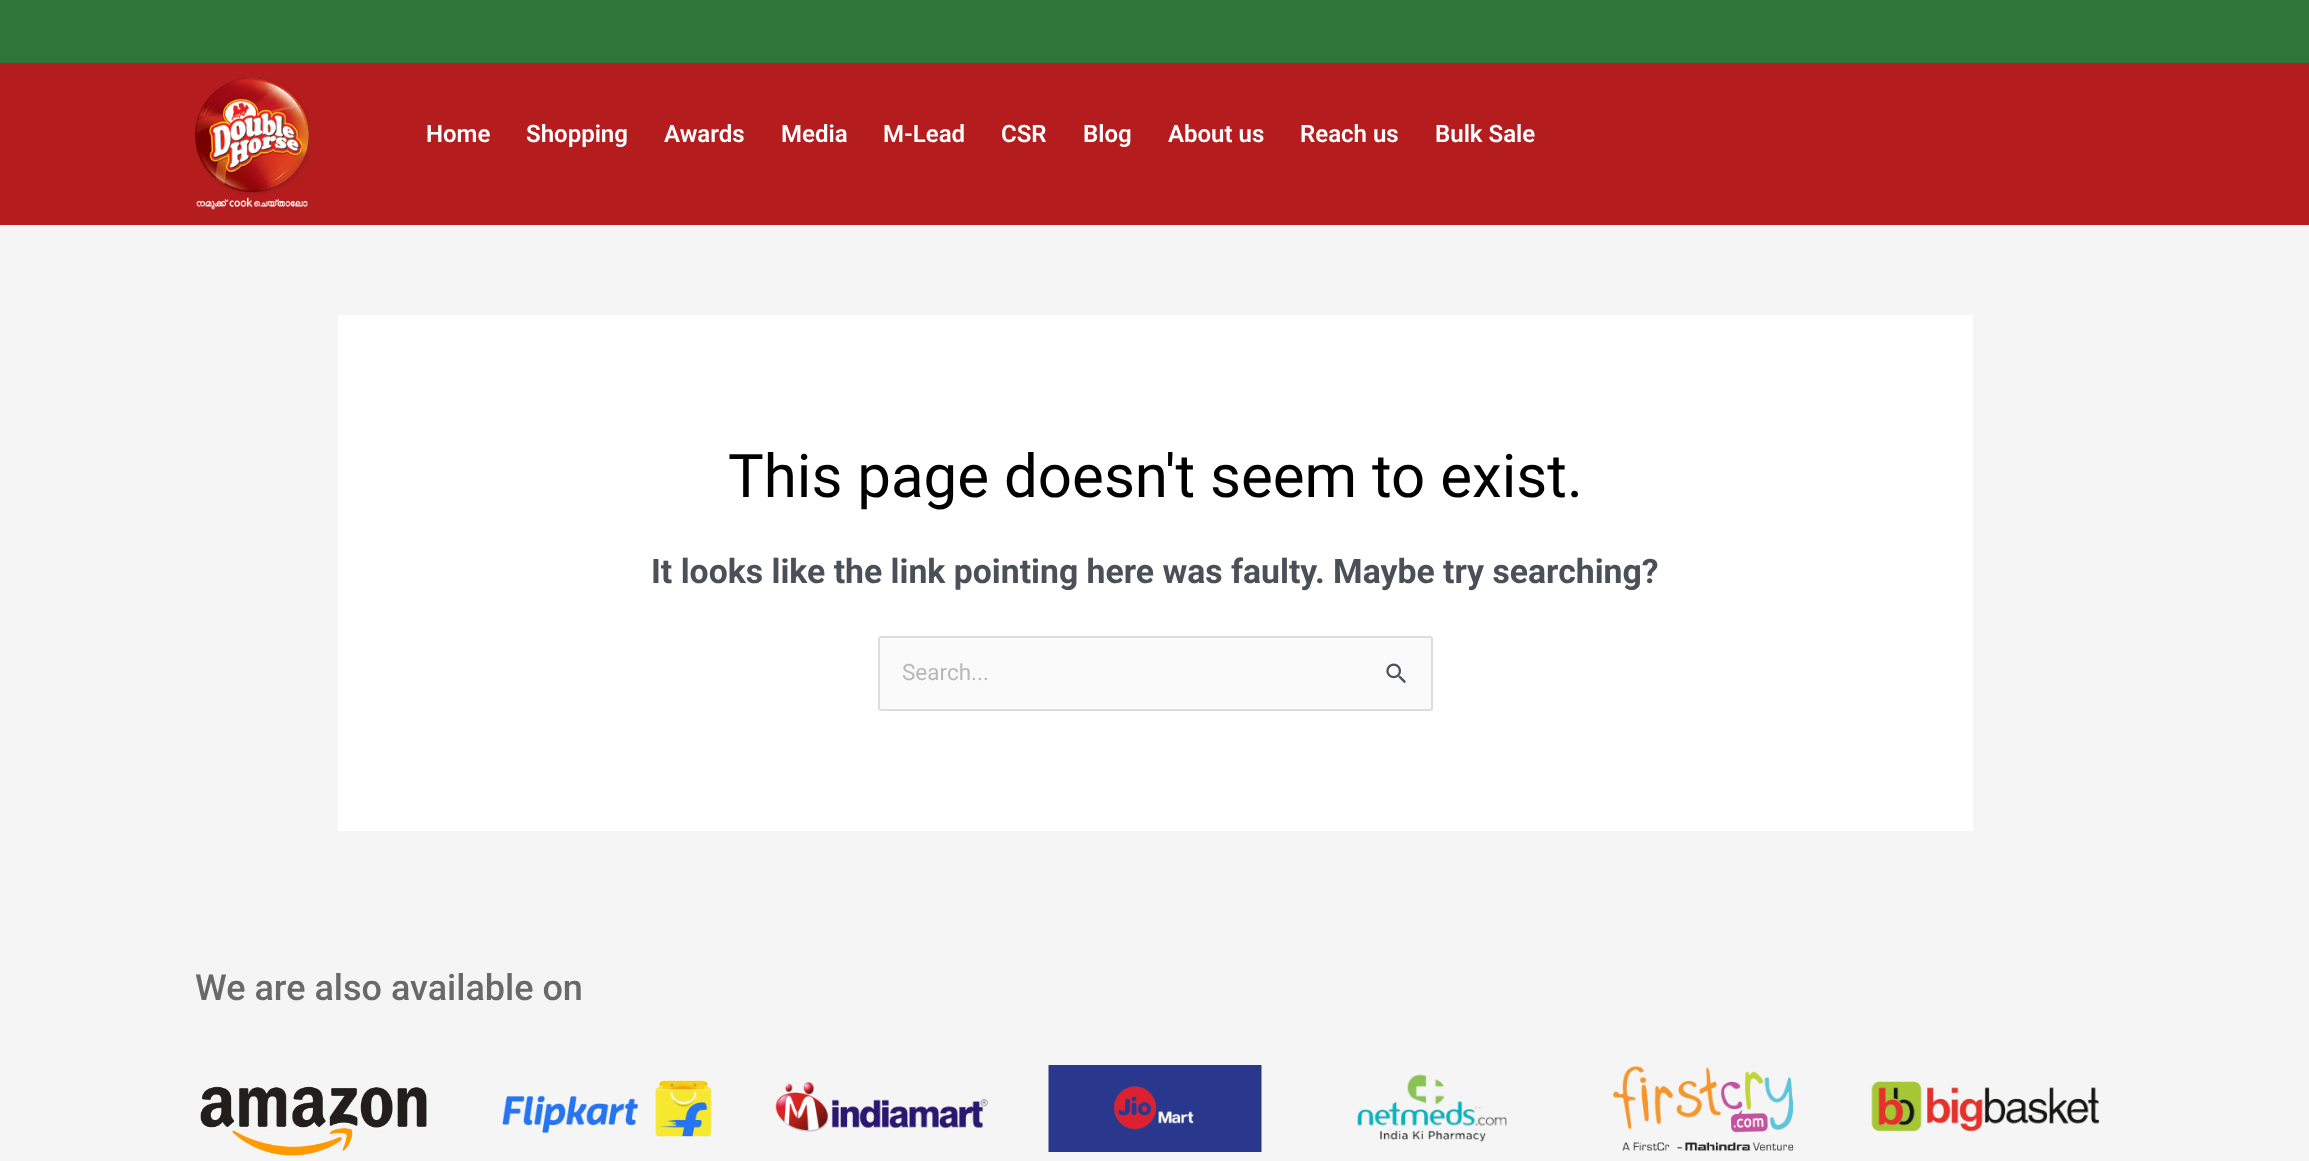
<!DOCTYPE html>
<meta charset="utf-8">
<style>body { margin: 0 } canvas { display: block }</style>
<canvas id="canvas" width="2309" height="1161"></canvas>
<script type="module">
  const canvas = document.getElementById("canvas");
  const ctx = canvas.getContext("2d");
  ctx.miterLimit = 4;
  ctx.fontKerning = "normal";
  async function loadImage(src) {
    const img = new Image();
    img.src = src;
    await img.decode();
    return img;
  }

  ctx.fillStyle = "#f5f5f5";
  ctx.fillRect(0, 0, 2309, 1161);
  ctx.fillStyle = "#2f7539";
  ctx.fillRect(0, 0, 2309, 63);
  ctx.fillStyle = "#b51c1e";
  ctx.fillRect(0, 63, 2309, 162);
  ctx.drawImage(await loadImage("img1.png"), 195, 77, 114, 133);
  ctx.font = "600 24px Roboto";
  ctx.fillStyle = "#ffffff";
  ctx.fillText("Home", 426, 142);
  ctx.fillText("Shopping", 526, 142);
  ctx.fillText("Awards", 664, 142);
  ctx.fillText("Media", 781, 142);
  ctx.fillText("M-Lead", 883, 142);
  ctx.fillText("CSR", 1001, 142);
  ctx.fillText("Blog", 1083, 142);
  ctx.fillText("About us", 1168, 142);
  ctx.fillText("Reach us", 1300, 142);
  ctx.fillText("Bulk Sale", 1435, 142);
  ctx.fillRect(338, 315, 1635, 516);
  ctx.font = "60px Roboto";
  ctx.fillStyle = "#000000";
  ctx.fillText("This page doesn't seem to exist.", 728, 497);
  ctx.font = "bold 33.75px Roboto";
  ctx.fillStyle = "#4b4f58";
  ctx.fillText("It looks like the link pointing here was faulty. Maybe try searching?", 651, 583);
  ctx.fillStyle = "#fafafa";
  ctx.beginPath();
  ctx.roundRect(879, 637, 553, 73, 2);
  ctx.fill();
  ctx.strokeStyle = "#dddddd";
  ctx.lineWidth = 2;
  ctx.stroke();
  ctx.font = "22.5px Roboto";
  ctx.fillStyle = "#b8b8b8";
  ctx.fillText("Search...", 902, 680);
  ctx.drawImage(await loadImage("img2.png"), 1386, 663, 20, 21);
  ctx.font = "500 36px Roboto";
  ctx.fillStyle = "#696969";
  ctx.fillText("We are also available on", 195, 1000);
  ctx.drawImage(await loadImage("img3.png"), 196, 1086, 231, 70);
  ctx.drawImage(await loadImage("img4.png"), 502, 1080, 210, 57);
  ctx.drawImage(await loadImage("img5.png"), 775, 1082, 213, 50);
  ctx.drawImage(await loadImage("img6.png"), 1048, 1065, 214, 87);
  ctx.drawImage(await loadImage("img7.png"), 1357, 1074, 150, 68);
  ctx.drawImage(await loadImage("img8.png"), 1612, 1066, 182, 86);
  ctx.drawImage(await loadImage("img9.png"), 1871, 1081, 229, 51);
</script>
